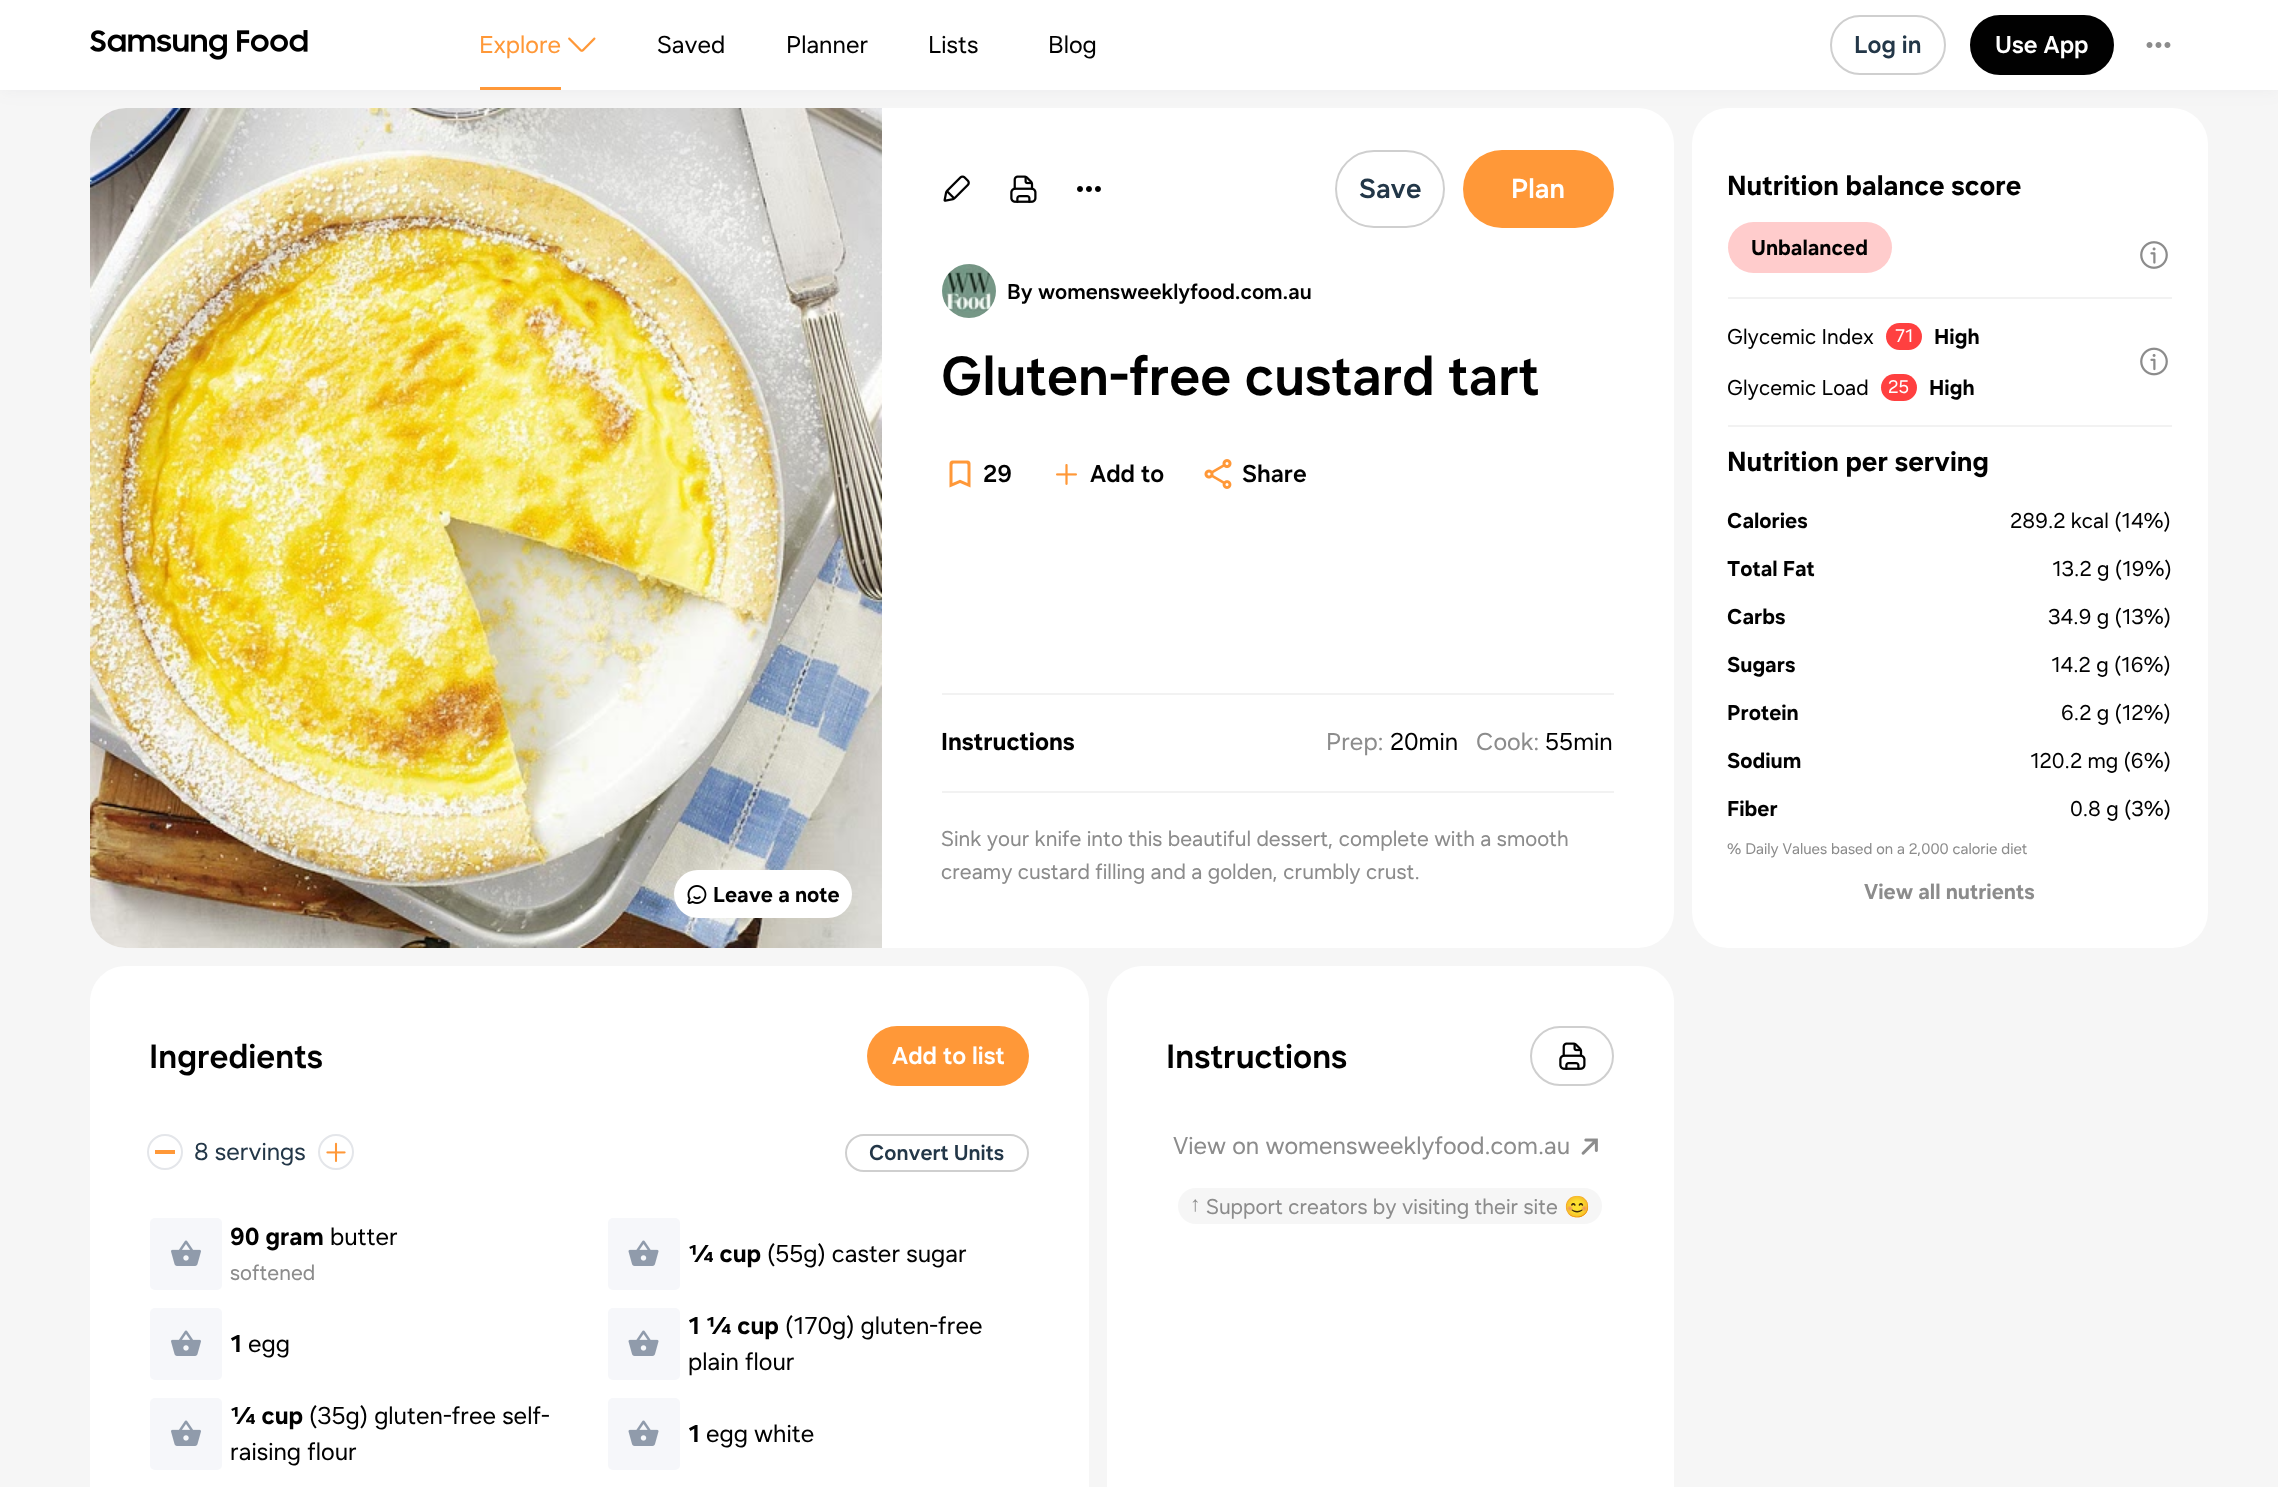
<!DOCTYPE html>
<meta charset="utf-8">
<style>body { margin: 0 } canvas { display: block }</style>
<canvas id="canvas" width="2278" height="1487"></canvas>
<script type="module">
  const canvas = document.getElementById("canvas");
  const ctx = canvas.getContext("2d");
  ctx.miterLimit = 4;
  ctx.fontKerning = "normal";
  async function loadImage(src) {
    const img = new Image();
    img.src = src;
    await img.decode();
    return img;
  }

  ctx.fillStyle = "#f6f6f6";
  ctx.fillRect(0, 0, 2278, 1487);
  ctx.fillStyle = "#ffffff";
  ctx.beginPath();
  ctx.roundRect(882, 108, 792, 840, [0, 36, 36, 0]);
  ctx.fill();
  ctx.beginPath();
  ctx.roundRect(90, 108, 792, 840, [36, 0, 0, 36]);
  ctx.fill();
  ctx.drawImage(await loadImage("img11.png"), 90, 108, 792, 840);
  ctx.beginPath();
  ctx.roundRect(1692, 108, 516, 840, 36);
  ctx.fill();
  ctx.fillStyle = "rgba(79, 79, 106, 0.06)";
  ctx.filter = "blur(9px)";
  ctx.beginPath();
  ctx.rect(0, 0, 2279, 90);
  ctx.fill();
  ctx.filter = "none";
  ctx.fillStyle = "#ffffff";
  ctx.fillRect(0, 0, 2278, 90);
  ctx.drawImage(await loadImage("img1.png"), 90, 30, 218, 30);
  ctx.save();
  ctx.beginPath();
  ctx.rect(480, 0, 81, 90);
  ctx.clip();
  ctx.fillStyle = "#ff9838";
  ctx.beginPath();
  ctx.moveTo(332, -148);
  ctx.lineTo(710, -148);
  ctx.lineTo(710, 238);
  ctx.lineTo(332, 238);
  ctx.closePath();
  ctx.moveTo(480, -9);
  ctx.lineTo(561, -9);
  ctx.bezierCurveTo(563, -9, 564, -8, 564, -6);
  ctx.lineTo(564, 84);
  ctx.bezierCurveTo(564, 86, 563, 87, 561, 87);
  ctx.lineTo(480, 87);
  ctx.bezierCurveTo(478, 87, 477, 86, 477, 84);
  ctx.lineTo(477, -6);
  ctx.bezierCurveTo(477, -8, 478, -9, 480, -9);
  ctx.closePath();
  ctx.fill("evenodd");
  ctx.restore();
  ctx.font = "24px 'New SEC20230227'";
  ctx.fillStyle = "#ff9838";
  ctx.fillText("Explore", 479, 53);
  ctx.drawImage(await loadImage("img2.png"), 568, 37, 28, 15);
  ctx.fillStyle = "#010101";
  ctx.fillText("Saved", 657, 53);
  ctx.fillText("Planner", 786, 53);
  ctx.fillText("Lists", 928, 53);
  ctx.fillText("Blog", 1048, 53);
  ctx.beginPath();
  ctx.roundRect(1831, 16, 114, 58, 29);
  ctx.strokeStyle = "#cfcfcf";
  ctx.lineWidth = 2;
  ctx.stroke();
  ctx.font = "600 24px 'New SEC20230227'";
  ctx.fillStyle = "#233748";
  ctx.fillText("Log in", 1854, 53);
  ctx.fillStyle = "#010101";
  ctx.beginPath();
  ctx.roundRect(1971, 16, 142, 58, 29);
  ctx.fill();
  ctx.strokeStyle = "#010101";
  ctx.stroke();
  ctx.fillStyle = "#ffffff";
  ctx.fillText("Use App", 1995, 53);
  ctx.drawImage(await loadImage("img3.png"), 2146, 42, 25, 6);
  ctx.drawImage(await loadImage("img4.png"), 943, 175, 27, 27);
  ctx.drawImage(await loadImage("img5.png"), 1010, 175, 27, 28);
  ctx.drawImage(await loadImage("img6.png"), 1077, 186, 24, 6);
  ctx.beginPath();
  ctx.roundRect(1336, 151, 108, 76, 38);
  ctx.strokeStyle = "#cfcfcf";
  ctx.stroke();
  ctx.font = "600 27px 'New SEC20230227'";
  ctx.fillStyle = "#233748";
  ctx.fillText("Save", 1359, 198);
  ctx.fillStyle = "#ff9838";
  ctx.beginPath();
  ctx.roundRect(1463, 150, 151, 78, 39);
  ctx.fill();
  ctx.fillStyle = "#ffffff";
  ctx.fillText("Plan", 1511, 198);
  ctx.drawImage(await loadImage("img7.png"), 942, 264, 54, 54);
  ctx.font = "600 21px 'New SEC20230227'";
  ctx.fillStyle = "#010101";
  ctx.fillText("By womensweeklyfood.com.au", 1007, 299);
  ctx.font = "600 54px 'New SEC20230227'";
  ctx.fillText("Gluten-free custard tart", 941, 395);
  ctx.drawImage(await loadImage("img8.png"), 949, 460, 22, 28);
  ctx.font = "600 24px 'New SEC20230227'";
  ctx.fillText("29", 983, 482);
  ctx.drawImage(await loadImage("img9.png"), 1056, 464, 21, 21);
  ctx.fillText("Add to", 1090, 482);
  ctx.drawImage(await loadImage("img10.png"), 1204, 459, 28, 30);
  ctx.fillText("Share", 1242, 482);
  ctx.fillStyle = "#f2f2f2";
  ctx.fillRect(942, 693, 672, 2);
  ctx.font = "bold 24px 'New SEC20230227'";
  ctx.fillStyle = "#010101";
  ctx.fillText("Instructions", 941, 750);
  ctx.font = "24px 'New SEC20230227'";
  ctx.fillStyle = "#8c8c8c";
  ctx.fillText("Prep:", 1326, 750);
  ctx.fillStyle = "#010101";
  ctx.fillText("20min", 1390, 750);
  ctx.fillStyle = "#8c8c8c";
  ctx.fillText("Cook:", 1476, 750);
  ctx.fillStyle = "#010101";
  ctx.fillText("55min", 1545, 750);
  ctx.fillStyle = "#f2f2f2";
  ctx.fillRect(942, 791, 672, 2);
  ctx.font = "21px 'New SEC20230227'";
  ctx.fillStyle = "#8c8c8c";
  ctx.fillText("Sink your knife into this beautiful dessert, complete with a smooth", 941, 846);
  ctx.fillText("creamy custard filling and a golden, crumbly crust.", 941, 879);
  ctx.fillStyle = "#ffffff";
  ctx.beginPath();
  ctx.roundRect(674, 870, 178, 48, 24);
  ctx.fill();
  ctx.drawImage(await loadImage("img12.png"), 687, 885, 20, 19);
  ctx.font = "bold 21px 'New SEC20230227'";
  ctx.fillStyle = "#010101";
  ctx.fillText("Leave a note", 713, 902);
  ctx.font = "bold 27px 'New SEC20230227'";
  ctx.fillText("Nutrition balance score", 1727, 195);
  ctx.fillStyle = "#ffcccc";
  ctx.beginPath();
  ctx.roundRect(1728, 222, 164, 51, 25.5);
  ctx.fill();
  ctx.font = "bold 21px 'New SEC20230227'";
  ctx.fillStyle = "#010101";
  ctx.fillText("Unbalanced", 1751, 255);
  ctx.drawImage(await loadImage("img13.png"), 2140, 241, 28, 28);
  ctx.fillStyle = "#f2f2f2";
  ctx.fillRect(1728, 297, 444, 2);
  ctx.fillRect(1728, 425, 444, 2);
  ctx.font = "21px 'New SEC20230227'";
  ctx.fillStyle = "#010101";
  ctx.fillText("Glycemic Index", 1727, 344);
  ctx.fillStyle = "#ff4040";
  ctx.beginPath();
  ctx.roundRect(1886, 323, 36, 27, 13.5);
  ctx.fill();
  ctx.font = "18px 'New SEC20230227'";
  ctx.fillStyle = "#ffffff";
  ctx.fillText("71", 1895, 342);
  ctx.font = "bold 21px 'New SEC20230227'";
  ctx.fillStyle = "#010101";
  ctx.fillText("High", 1934, 344);
  ctx.font = "21px 'New SEC20230227'";
  ctx.fillText("Glycemic Load", 1727, 395);
  ctx.fillStyle = "#ff4040";
  ctx.beginPath();
  ctx.roundRect(1881, 374, 36, 27, 13.5);
  ctx.fill();
  ctx.font = "18px 'New SEC20230227'";
  ctx.fillStyle = "#ffffff";
  ctx.fillText("25", 1888, 393);
  ctx.font = "bold 21px 'New SEC20230227'";
  ctx.fillStyle = "#010101";
  ctx.fillText("High", 1929, 395);
  ctx.drawImage(await loadImage("img14.png"), 2140, 347, 28, 29);
  ctx.font = "bold 27px 'New SEC20230227'";
  ctx.fillText("Nutrition per serving", 1727, 471);
  ctx.font = "bold 21px 'New SEC20230227'";
  ctx.fillText("Calories", 1727, 528);
  ctx.font = "21px 'New SEC20230227'";
  ctx.fillText("289.2 kcal (14%)", 2010, 528);
  ctx.font = "bold 21px 'New SEC20230227'";
  ctx.fillText("Total Fat", 1727, 576);
  ctx.font = "21px 'New SEC20230227'";
  ctx.fillText("13.2 g (19%)", 2052, 576);
  ctx.font = "bold 21px 'New SEC20230227'";
  ctx.fillText("Carbs", 1727, 624);
  ctx.font = "21px 'New SEC20230227'";
  ctx.fillText("34.9 g (13%)", 2048, 624);
  ctx.font = "bold 21px 'New SEC20230227'";
  ctx.fillText("Sugars", 1727, 672);
  ctx.font = "21px 'New SEC20230227'";
  ctx.fillText("14.2 g (16%)", 2051, 672);
  ctx.font = "bold 21px 'New SEC20230227'";
  ctx.fillText("Protein", 1727, 720);
  ctx.font = "21px 'New SEC20230227'";
  ctx.fillText("6.2 g (12%)", 2061, 720);
  ctx.font = "bold 21px 'New SEC20230227'";
  ctx.fillText("Sodium", 1727, 768);
  ctx.font = "21px 'New SEC20230227'";
  ctx.fillText("120.2 mg (6%)", 2030, 768);
  ctx.font = "bold 21px 'New SEC20230227'";
  ctx.fillText("Fiber", 1727, 816);
  ctx.font = "21px 'New SEC20230227'";
  ctx.fillText("0.8 g (3%)", 2070, 816);
  ctx.font = "15px 'New SEC20230227'";
  ctx.fillStyle = "#8c8c8c";
  ctx.fillText("% Daily Values based on a 2,000 calorie diet", 1727, 854);
  ctx.font = "bold 21px 'New SEC20230227'";
  ctx.fillText("View all nutrients", 1864, 899);
  ctx.fillStyle = "#ffffff";
  ctx.beginPath();
  ctx.moveTo(126, 966);
  ctx.lineTo(1053, 966);
  ctx.bezierCurveTo(1073, 966, 1089, 982, 1089, 1002);
  ctx.lineTo(1089, 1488);
  ctx.lineTo(90, 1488);
  ctx.lineTo(90, 1002);
  ctx.bezierCurveTo(90, 982, 106, 966, 126, 966);
  ctx.closePath();
  ctx.fill();
  ctx.font = "600 33px 'New SEC20230227'";
  ctx.fillStyle = "#010101";
  ctx.fillText("Ingredients", 149, 1068);
  ctx.fillStyle = "#ff9838";
  ctx.beginPath();
  ctx.roundRect(867, 1026, 162, 60, 30);
  ctx.fill();
  ctx.font = "600 24px 'New SEC20230227'";
  ctx.fillStyle = "#ffffff";
  ctx.fillText("Add to list", 892, 1064);
  ctx.beginPath();
  ctx.arc(165, 1152, 17, 0, Math.PI * 2);
  ctx.strokeStyle = "#e4e6ea";
  ctx.stroke();
  ctx.fillStyle = "#ff9838";
  ctx.fillRect(155, 1150, 20, 4);
  ctx.font = "24px 'New SEC20230227'";
  ctx.fillStyle = "#233748";
  ctx.fillText("8 servings", 194, 1160);
  ctx.beginPath();
  ctx.arc(336, 1152, 17, 0, Math.PI * 2);
  ctx.stroke();
  ctx.drawImage(await loadImage("img15.png"), 326, 1142, 20, 20);
  ctx.beginPath();
  ctx.roundRect(846, 1135, 182, 36, 18);
  ctx.strokeStyle = "#cfcfcf";
  ctx.stroke();
  ctx.font = "600 21px 'New SEC20230227'";
  ctx.fillText("Convert Units", 869, 1160);
  ctx.fillStyle = "#f6f7fa";
  ctx.beginPath();
  ctx.roundRect(150, 1218, 72, 72, 5);
  ctx.fill();
  ctx.drawImage(await loadImage("img16.png"), 171, 1240, 30, 26);
  ctx.font = "bold 24px 'New SEC20230227'";
  ctx.fillStyle = "#010101";
  ctx.fillText("90 gram", 230, 1245);
  ctx.font = "24px 'New SEC20230227'";
  ctx.fillText("butter", 330, 1245);
  ctx.font = "21px 'New SEC20230227'";
  ctx.fillStyle = "#8c8c8c";
  ctx.fillText("softened", 230, 1280);
  ctx.fillStyle = "#f6f7fa";
  ctx.beginPath();
  ctx.roundRect(608, 1218, 72, 72, 5);
  ctx.fill();
  ctx.drawImage(await loadImage("img17.png"), 628, 1240, 31, 26);
  ctx.font = "bold 24px 'New SEC20230227'";
  ctx.fillStyle = "#010101";
  ctx.fillText("¼ cup", 688, 1262);
  ctx.font = "24px 'New SEC20230227'";
  ctx.fillText("(55g) caster sugar", 767, 1262);
  ctx.fillStyle = "#f6f7fa";
  ctx.beginPath();
  ctx.roundRect(150, 1308, 72, 72, 5);
  ctx.fill();
  ctx.drawImage(await loadImage("img16.png"), 171, 1330, 30, 26);
  ctx.font = "bold 24px 'New SEC20230227'";
  ctx.fillStyle = "#010101";
  ctx.fillText("1", 230, 1352);
  ctx.font = "24px 'New SEC20230227'";
  ctx.fillText("egg", 248, 1352);
  ctx.fillStyle = "#f6f7fa";
  ctx.beginPath();
  ctx.roundRect(608, 1308, 72, 72, 5);
  ctx.fill();
  ctx.drawImage(await loadImage("img17.png"), 628, 1330, 31, 26);
  ctx.font = "bold 24px 'New SEC20230227'";
  ctx.fillStyle = "#010101";
  ctx.fillText("1 ¼ cup", 688, 1334);
  ctx.font = "24px 'New SEC20230227'";
  ctx.fillText("(170g) gluten-free", 785, 1334);
  ctx.fillText("plain flour", 688, 1370);
  ctx.fillStyle = "#f6f7fa";
  ctx.beginPath();
  ctx.roundRect(150, 1398, 72, 72, 5);
  ctx.fill();
  ctx.drawImage(await loadImage("img16.png"), 171, 1420, 30, 26);
  ctx.font = "bold 24px 'New SEC20230227'";
  ctx.fillStyle = "#010101";
  ctx.fillText("¼ cup", 230, 1424);
  ctx.font = "24px 'New SEC20230227'";
  ctx.fillText("(35g) gluten-free self-", 309, 1424);
  ctx.fillText("raising flour", 230, 1460);
  ctx.fillStyle = "#f6f7fa";
  ctx.beginPath();
  ctx.roundRect(608, 1398, 72, 72, 5);
  ctx.fill();
  ctx.drawImage(await loadImage("img17.png"), 628, 1420, 31, 26);
  ctx.font = "bold 24px 'New SEC20230227'";
  ctx.fillStyle = "#010101";
  ctx.fillText("1", 688, 1442);
  ctx.font = "24px 'New SEC20230227'";
  ctx.fillText("egg white", 706, 1442);
  ctx.fillStyle = "#ffffff";
  ctx.beginPath();
  ctx.moveTo(1143, 966);
  ctx.lineTo(1638, 966);
  ctx.bezierCurveTo(1658, 966, 1674, 982, 1674, 1002);
  ctx.lineTo(1674, 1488);
  ctx.lineTo(1107, 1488);
  ctx.lineTo(1107, 1002);
  ctx.bezierCurveTo(1107, 982, 1123, 966, 1143, 966);
  ctx.closePath();
  ctx.fill();
  ctx.font = "600 33px 'New SEC20230227'";
  ctx.fillStyle = "#010101";
  ctx.fillText("Instructions", 1166, 1068);
  ctx.beginPath();
  ctx.roundRect(1531, 1027, 82, 58, 29);
  ctx.stroke();
  ctx.drawImage(await loadImage("img5.png"), 1559, 1042, 27, 28);
  ctx.font = "24px 'New SEC20230227'";
  ctx.fillStyle = "#8c8c8c";
  ctx.fillText("View on womensweeklyfood.com.au", 1173, 1154);
  ctx.drawImage(await loadImage("img18.png"), 1581, 1138, 17, 17);
  ctx.fillStyle = "#f6f6f6";
  ctx.beginPath();
  ctx.roundRect(1178, 1188, 424, 36, 18);
  ctx.fill();
  ctx.font = "21px Liberation Sans";
  ctx.fillStyle = "#8c8c8c";
  ctx.fillText("↑", 1190, 1211);
  ctx.font = "21px 'New SEC20230227'";
  ctx.fillText("Support creators by visiting their site", 1206, 1214);
  ctx.font = "21px Noto Color Emoji";
  ctx.fillText("😊", 1564, 1214);
</script>
